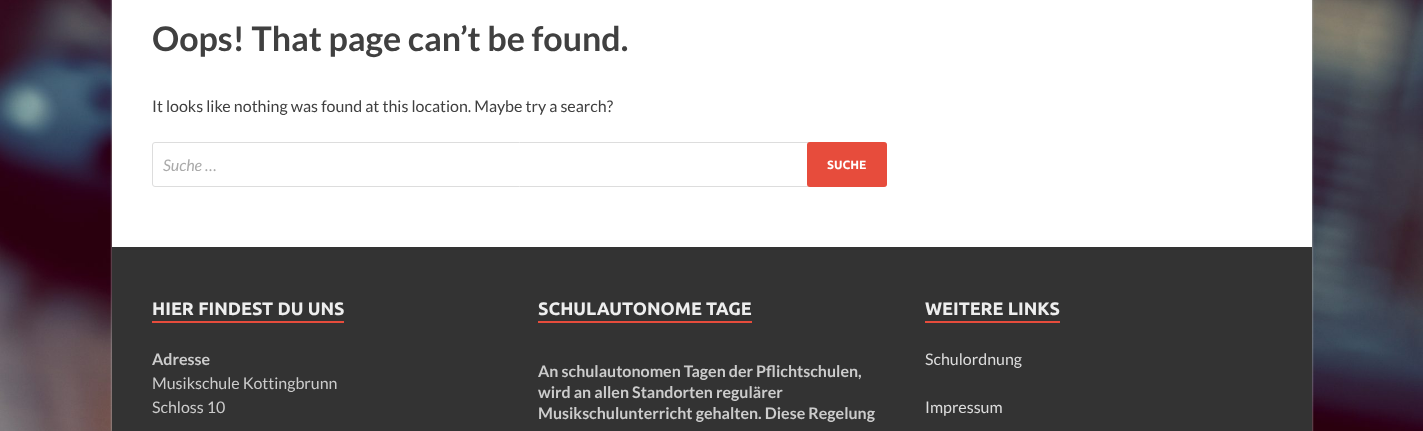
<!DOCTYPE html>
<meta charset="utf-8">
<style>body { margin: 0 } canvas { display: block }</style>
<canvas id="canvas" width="1423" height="431"></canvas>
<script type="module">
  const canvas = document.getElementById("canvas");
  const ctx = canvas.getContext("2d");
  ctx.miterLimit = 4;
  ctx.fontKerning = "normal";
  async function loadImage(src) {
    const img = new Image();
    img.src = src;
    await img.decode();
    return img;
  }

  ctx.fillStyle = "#ffffff";
  ctx.fillRect(0, 0, 1423, 431);
  ctx.drawImage(await loadImage("img1.png"), 0, 0, 1423, 431);
  ctx.fillStyle = "#bbbbbb";
  ctx.filter = "blur(1px)";
  ctx.beginPath();
  ctx.rect(112, -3, 1200, 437);
  ctx.fill();
  ctx.filter = "none";
  ctx.fillStyle = "#ffffff";
  ctx.fillRect(112, 0, 1200, 247);
  ctx.font = "bold 34px Lato";
  ctx.fillStyle = "#404040";
  ctx.fillText("Oops! That page can’t be found.", 152, 51);
  ctx.font = "16px Lato";
  ctx.fillText("It looks like nothing was found at this location. Maybe try a search?", 152, 112);
  ctx.beginPath();
  ctx.roundRect(152.5, 142.5, 734, 44, 2.5);
  ctx.strokeStyle = "#dddddd";
  ctx.stroke();
  ctx.font = "italic 16px Lato";
  ctx.fillStyle = "#aaaaaa";
  ctx.fillText("Suche …", 163, 171);
  ctx.fillStyle = "#e74c3c";
  ctx.beginPath();
  ctx.roundRect(807, 142, 80, 45, 3);
  ctx.fill();
  ctx.font = "bold 12px Ubuntu";
  ctx.fillStyle = "#ffffff";
  ctx.fillText("SUCHE", 827, 169);
  ctx.fillStyle = "#333333";
  ctx.fillRect(112, 247, 1200, 184);
  ctx.fillStyle = "#e74c3c";
  ctx.fillRect(152, 321, 192, 2);
  ctx.font = "bold 18px Ubuntu";
  ctx.fillStyle = "#eeeeee";
  ctx.fillText("HIER FINDEST DU UNS", 152, 315);
  ctx.font = "bold 16px Lato";
  ctx.fillStyle = "#cccccc";
  ctx.fillText("Adresse", 152, 365);
  ctx.font = "16px Lato";
  ctx.fillText("Musikschule Kottingbrunn", 152, 389);
  ctx.fillText("Schloss 10", 152, 413);
  ctx.fillStyle = "#e74c3c";
  ctx.fillRect(538, 321, 214, 2);
  ctx.font = "bold 18px Ubuntu";
  ctx.fillStyle = "#eeeeee";
  ctx.fillText("SCHULAUTONOME TAGE", 538, 315);
  ctx.font = "bold 16px Lato";
  ctx.fillStyle = "#cccccc";
  ctx.fillText("An schulautonomen Tagen der Pflichtschulen,", 538, 377);
  ctx.fillText("wird an allen Standorten regulärer", 538, 398);
  ctx.fillText("Musikschulunterricht gehalten. Diese Regelung", 538, 419);
  ctx.fillStyle = "#e74c3c";
  ctx.fillRect(925, 321, 135, 2);
  ctx.font = "bold 18px Ubuntu";
  ctx.fillStyle = "#eeeeee";
  ctx.fillText("WEITERE LINKS", 925, 315);
  ctx.font = "16px Lato";
  ctx.fillStyle = "#dddddd";
  ctx.fillText("Schulordnung", 925, 365);
  ctx.fillText("Impressum", 925, 413);
</script>
